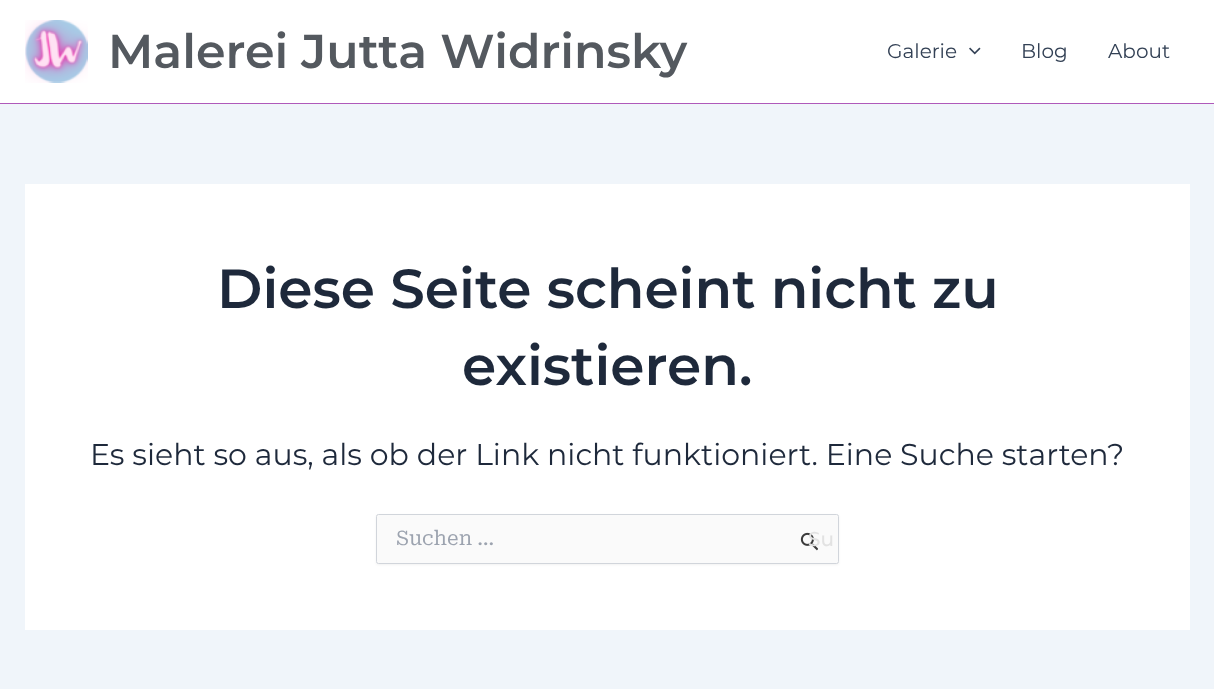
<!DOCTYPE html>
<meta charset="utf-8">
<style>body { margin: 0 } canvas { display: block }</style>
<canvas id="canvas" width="1214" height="689"></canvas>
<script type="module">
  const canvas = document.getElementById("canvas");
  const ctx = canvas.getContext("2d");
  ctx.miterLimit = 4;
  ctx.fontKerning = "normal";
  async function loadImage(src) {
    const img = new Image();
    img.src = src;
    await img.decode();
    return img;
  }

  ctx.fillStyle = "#f0f5fa";
  ctx.fillRect(0, 0, 1214, 689);
  ctx.fillStyle = "#ffffff";
  ctx.fillRect(0, 0, 1214, 103);
  ctx.fillStyle = "#af59ba";
  ctx.fillRect(0, 103, 1214, 1);
  ctx.drawImage(await loadImage("img1.png"), 25, 20, 63, 63);
  ctx.font = "100 47.5px Montserrat";
  ctx.fillStyle = "#54595f";
  ctx.fillText("Malerei Jutta Widrinsky", 108, 68);
  ctx.font = "100 20px 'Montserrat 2'";
  ctx.fillStyle = "#334155";
  ctx.fillText("Galerie", 887, 58);
  ctx.drawImage(await loadImage("img2.png"), 969, 47, 12, 8);
  ctx.fillText("Blog", 1021, 58);
  ctx.fillText("About", 1108, 58);
  ctx.fillStyle = "#ffffff";
  ctx.fillRect(25, 184, 1165, 446);
  ctx.font = "100 55px Montserrat";
  ctx.fillStyle = "#1e293b";
  ctx.fillText("Diese Seite scheint nicht zu", 217, 308);
  ctx.fillText("existieren.", 462, 385);
  ctx.font = "100 30px 'Montserrat 2'";
  ctx.fillText("Es sieht so aus, als ob der Link nicht funktioniert. Eine Suche starten?", 90, 465);
  ctx.fillStyle = "rgba(0, 0, 0, 0.05)";
  ctx.filter = "blur(1px)";
  ctx.beginPath();
  ctx.roundRect(376, 515, 463, 50, 2.5);
  ctx.fill();
  ctx.filter = "none";
  ctx.fillStyle = "#fafafa";
  ctx.beginPath();
  ctx.roundRect(376.5, 514.5, 462, 49, 2);
  ctx.fill();
  ctx.strokeStyle = "#d1d5db";
  ctx.stroke();
  ctx.font = "20px Roboto Serif";
  ctx.fillStyle = "#9ca3af";
  ctx.fillText("Suchen …", 396, 545);
  ctx.drawImage(await loadImage("img3.png"), 800, 532, 18, 19);
  ctx.font = "100 20px 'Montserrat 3'";
  ctx.fillStyle = "#e2e2e2";
  ctx.fillText("Su", 808, 546);
</script>
